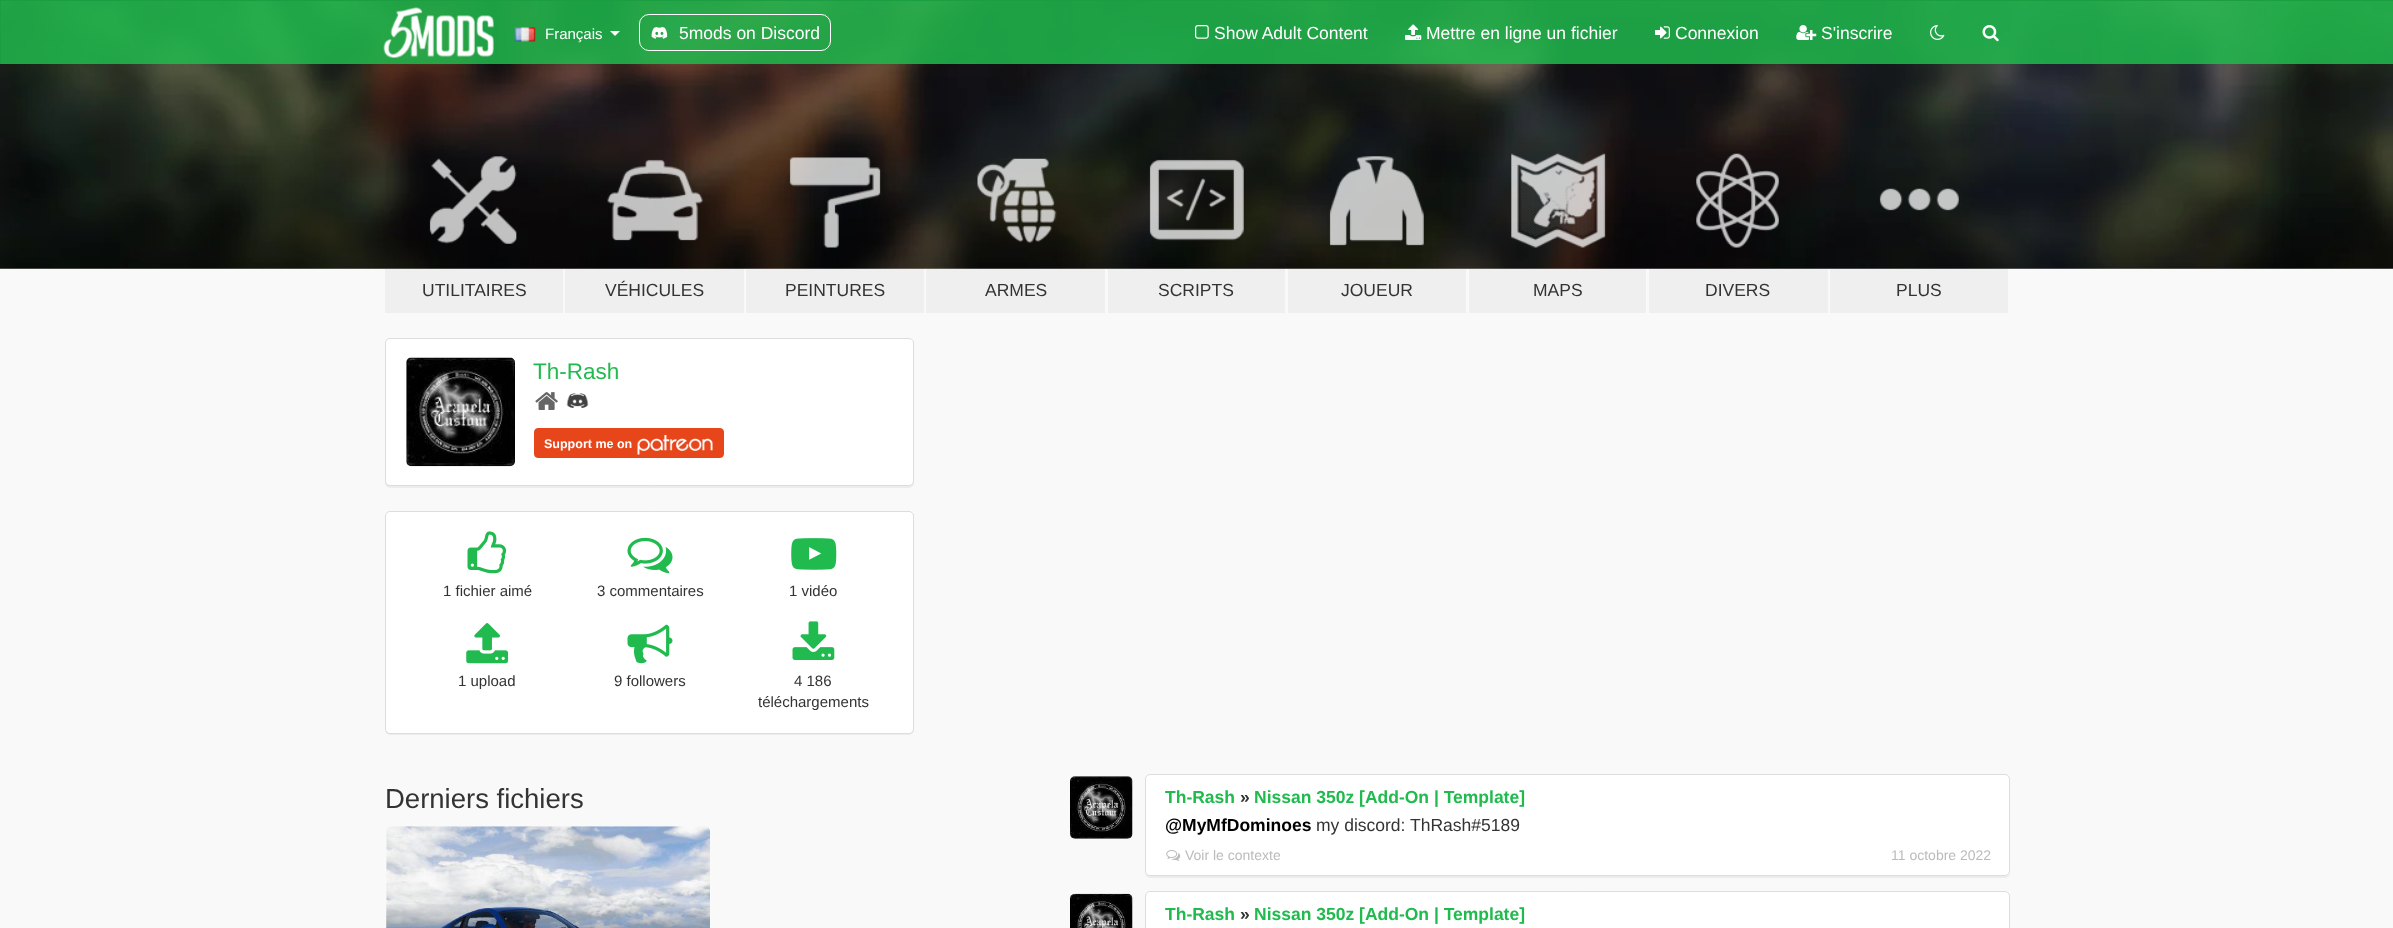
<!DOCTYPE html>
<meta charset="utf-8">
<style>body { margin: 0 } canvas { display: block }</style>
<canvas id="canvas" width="2393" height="928"></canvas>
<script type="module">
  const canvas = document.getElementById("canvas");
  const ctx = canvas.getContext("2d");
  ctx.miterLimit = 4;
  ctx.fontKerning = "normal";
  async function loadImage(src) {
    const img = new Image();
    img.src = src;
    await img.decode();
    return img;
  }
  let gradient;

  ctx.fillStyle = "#f9f9f9";
  ctx.fillRect(0, 0, 2393, 928);
  ctx.drawImage(await loadImage("img10.png"), 0, 1, 2393, 268);
  ctx.fillStyle = "rgba(32, 186, 78, 0.85)";
  ctx.fillRect(1, 1, 2392, 63);
  ctx.fillStyle = "#1b9e42";
  ctx.fillRect(0, 0, 2393, 1);
  ctx.fillRect(0, 0, 1, 64);
  ctx.drawImage(await loadImage("img1.png"), 383, 7, 111, 51);
  ctx.drawImage(await loadImage("img2.png"), 514, 27, 22, 15);
  ctx.font = "15px Liberation Sans";
  ctx.fillStyle = "#ffffff";
  ctx.fillText("Français", 545, 39);
  ctx.beginPath();
  ctx.moveTo(610, 31);
  ctx.lineTo(620, 31);
  ctx.lineTo(615, 36);
  ctx.closePath();
  ctx.fill();
  ctx.beginPath();
  ctx.roundRect(639.5, 14.5, 191, 36, 9.5);
  ctx.strokeStyle = "#ffffff";
  ctx.stroke();
  ctx.drawImage(await loadImage("img3.png"), 651, 26, 17, 13);
  ctx.font = "17.5px Liberation Sans";
  ctx.fillText("5mods on Discord", 679, 39);
  ctx.drawImage(await loadImage("img4.png"), 1195, 25, 14, 14);
  ctx.fillText("Show Adult Content", 1214, 39);
  ctx.drawImage(await loadImage("img5.png"), 1405, 24, 17, 16);
  ctx.fillText("Mettre en ligne un fichier", 1426, 39);
  ctx.drawImage(await loadImage("img6.png"), 1655, 26, 15, 13);
  ctx.fillText("Connexion", 1675, 39);
  ctx.drawImage(await loadImage("img7.png"), 1796, 25, 21, 15);
  ctx.fillText("S'inscrire", 1821, 39);
  ctx.drawImage(await loadImage("img8.png"), 1930, 25, 15, 15);
  ctx.drawImage(await loadImage("img9.png"), 1982, 25, 17, 17);
  ctx.drawImage(await loadImage("img11.png"), 429, 156, 88, 88);
  ctx.fillStyle = "#efefef";
  ctx.fillRect(385, 269, 178, 44);
  ctx.fillStyle = "#333333";
  ctx.fillText("UTILITAIRES", 422, 296);
  ctx.drawImage(await loadImage("img12.png"), 607, 159, 96, 82);
  ctx.fillStyle = "#efefef";
  ctx.fillRect(565, 269, 179, 44);
  ctx.fillStyle = "#333333";
  ctx.fillText("VÉHICULES", 605, 296);
  ctx.drawImage(await loadImage("img13.png"), 789, 157, 92, 91);
  ctx.fillStyle = "#efefef";
  ctx.fillRect(746, 269, 178, 44);
  ctx.fillStyle = "#333333";
  ctx.fillText("PEINTURES", 785, 296);
  ctx.drawImage(await loadImage("img14.png"), 977, 158, 80, 85);
  ctx.fillStyle = "#efefef";
  ctx.fillRect(926, 269, 179, 44);
  ctx.fillStyle = "#333333";
  ctx.fillText("ARMES", 985, 296);
  ctx.drawImage(await loadImage("img15.png"), 1149, 159, 95, 82);
  ctx.fillStyle = "#efefef";
  ctx.fillRect(1108, 269, 177, 44);
  ctx.fillStyle = "#333333";
  ctx.fillText("SCRIPTS", 1158, 296);
  ctx.drawImage(await loadImage("img16.png"), 1329, 156, 95, 90);
  ctx.fillStyle = "#efefef";
  ctx.fillRect(1288, 269, 178, 44);
  ctx.fillStyle = "#333333";
  ctx.fillText("JOUEUR", 1341, 296);
  ctx.drawImage(await loadImage("img17.png"), 1511, 153, 95, 95);
  ctx.fillStyle = "#efefef";
  ctx.fillRect(1469, 269, 177, 44);
  ctx.fillStyle = "#333333";
  ctx.fillText("MAPS", 1533, 296);
  ctx.drawImage(await loadImage("img18.png"), 1696, 153, 83, 95);
  ctx.fillStyle = "#efefef";
  ctx.fillRect(1649, 269, 179, 44);
  ctx.fillStyle = "#333333";
  ctx.fillText("DIVERS", 1705, 296);
  ctx.drawImage(await loadImage("img19.png"), 1879, 188, 80, 23);
  ctx.fillStyle = "#efefef";
  ctx.fillRect(1830, 269, 178, 44);
  ctx.fillStyle = "#333333";
  ctx.fillText("PLUS", 1896, 296);
  ctx.fillStyle = "rgba(0, 0, 0, 0.05)";
  ctx.filter = "blur(0.5px)";
  ctx.beginPath();
  ctx.roundRect(385, 339, 529, 149, 5);
  ctx.fill();
  ctx.filter = "none";
  ctx.fillStyle = "#ffffff";
  ctx.beginPath();
  ctx.roundRect(385.5, 338.5, 528, 147, 4.5);
  ctx.fill();
  ctx.strokeStyle = "#dddddd";
  ctx.stroke();
  ctx.drawImage(await loadImage("img20.png"), 406, 357, 109, 110);
  ctx.font = "22.5px Liberation Sans";
  ctx.fillStyle = "#20ba4e";
  ctx.fillText("Th-Rash", 533, 379);
  ctx.drawImage(await loadImage("img21.png"), 535, 392, 23, 18);
  ctx.drawImage(await loadImage("img22.png"), 566, 393, 23, 15);
  ctx.fillStyle = "#e6461a";
  ctx.beginPath();
  ctx.roundRect(534.5, 428.5, 189, 29, 3.5);
  ctx.fill();
  ctx.strokeStyle = "#e6461a";
  ctx.stroke();
  ctx.font = "bold 12.5px Liberation Sans";
  ctx.fillStyle = "#ffffff";
  ctx.fillText("Support me on", 544, 448);
  ctx.drawImage(await loadImage("img23.png"), 637, 435, 76, 20);
  ctx.fillStyle = "rgba(0, 0, 0, 0.05)";
  ctx.filter = "blur(0.5px)";
  ctx.beginPath();
  ctx.roundRect(385, 513, 529, 222, 5);
  ctx.fill();
  ctx.filter = "none";
  ctx.fillStyle = "#ffffff";
  ctx.beginPath();
  ctx.roundRect(385.5, 511.5, 528, 222, 4.5);
  ctx.fill();
  ctx.strokeStyle = "#dddddd";
  ctx.stroke();
  ctx.drawImage(await loadImage("img24.png"), 467, 531, 40, 43);
  ctx.font = "15px Liberation Sans";
  ctx.fillStyle = "#333333";
  ctx.fillText("1 fichier aimé", 443, 596);
  ctx.drawImage(await loadImage("img25.png"), 627, 537, 46, 37);
  ctx.fillText("3 commentaires", 597, 596);
  ctx.drawImage(await loadImage("img26.png"), 791, 538, 46, 32);
  ctx.fillText("1 vidéo", 789, 596);
  ctx.drawImage(await loadImage("img27.png"), 466, 623, 43, 41);
  ctx.fillText("1 upload", 458, 686);
  ctx.drawImage(await loadImage("img28.png"), 627, 624, 46, 40);
  ctx.fillText("9 followers", 614, 686);
  ctx.drawImage(await loadImage("img29.png"), 792, 621, 43, 39);
  ctx.fillText("4 186", 794, 686);
  ctx.fillText("téléchargements", 758, 707);
  ctx.font = "27.5px Liberation Sans";
  ctx.fillText("Derniers fichiers", 385, 808);
  ctx.drawImage(await loadImage("img30.png"), 386, 826, 324, 102);
  gradient = ctx.createLinearGradient(548, 826, 548, 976);
  gradient.addColorStop(0.5, "rgba(0, 0, 0, 0)");
  gradient.addColorStop(0.75, "rgba(0, 0, 0, 0.25)");
  gradient.addColorStop(1, "rgba(0, 0, 0, 0.75)");
  ctx.fillStyle = gradient;
  ctx.fillRect(386, 904, 324, 24);
  ctx.drawImage(await loadImage("img31.png"), 1070, 776, 63, 63);
  ctx.save();
  ctx.beginPath();
  ctx.moveTo(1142, 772);
  ctx.lineTo(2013, 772);
  ctx.lineTo(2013, 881);
  ctx.lineTo(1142, 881);
  ctx.closePath();
  ctx.moveTo(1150, 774);
  ctx.lineTo(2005, 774);
  ctx.bezierCurveTo(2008, 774, 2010, 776, 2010, 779);
  ctx.lineTo(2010, 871);
  ctx.bezierCurveTo(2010, 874, 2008, 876, 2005, 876);
  ctx.lineTo(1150, 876);
  ctx.bezierCurveTo(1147, 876, 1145, 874, 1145, 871);
  ctx.lineTo(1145, 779);
  ctx.bezierCurveTo(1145, 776, 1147, 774, 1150, 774);
  ctx.closePath();
  ctx.clip("evenodd");
  ctx.fillStyle = "rgba(0, 0, 0, 0.05)";
  ctx.filter = "blur(0.5px)";
  ctx.beginPath();
  ctx.roundRect(1145, 775, 865, 103, 5);
  ctx.fill();
  ctx.filter = "none";
  ctx.restore();
  ctx.fillStyle = "#ffffff";
  ctx.beginPath();
  ctx.roundRect(1145.5, 774.5, 864, 101, 4.5);
  ctx.fill();
  ctx.stroke();
  ctx.font = "bold 17.5px Liberation Sans";
  ctx.fillStyle = "#20ba4e";
  ctx.fillText("Th-Rash", 1165, 803);
  ctx.fillStyle = "#333333";
  ctx.fillText("»", 1240, 803);
  ctx.fillStyle = "#20ba4e";
  ctx.fillText("Nissan 350z [Add-On | Template]", 1254, 803);
  ctx.fillStyle = "#000000";
  ctx.fillText("@MyMfDominoes", 1165, 831);
  ctx.font = "17.5px Liberation Sans";
  ctx.fillStyle = "#333333";
  ctx.fillText("my discord: ThRash#5189", 1316, 831);
  ctx.drawImage(await loadImage("img32.png"), 1166, 850, 15, 11);
  ctx.font = "14px Liberation Sans";
  ctx.fillStyle = "#bbbbbb";
  ctx.fillText("Voir le contexte", 1185, 860);
  ctx.fillText("11 octobre 2022", 1891, 860);
  ctx.drawImage(await loadImage("img33.png"), 1070, 893, 63, 35);
  ctx.fillStyle = "#ffffff";
  ctx.beginPath();
  ctx.roundRect(1145.5, 891.5, 864, 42, 4.5);
  ctx.fill();
  ctx.stroke();
  ctx.font = "bold 17.5px Liberation Sans";
  ctx.fillStyle = "#20ba4e";
  ctx.fillText("Th-Rash", 1165, 920);
  ctx.fillStyle = "#333333";
  ctx.fillText("»", 1240, 920);
  ctx.fillStyle = "#20ba4e";
  ctx.fillText("Nissan 350z [Add-On | Template]", 1254, 920);
</script>
